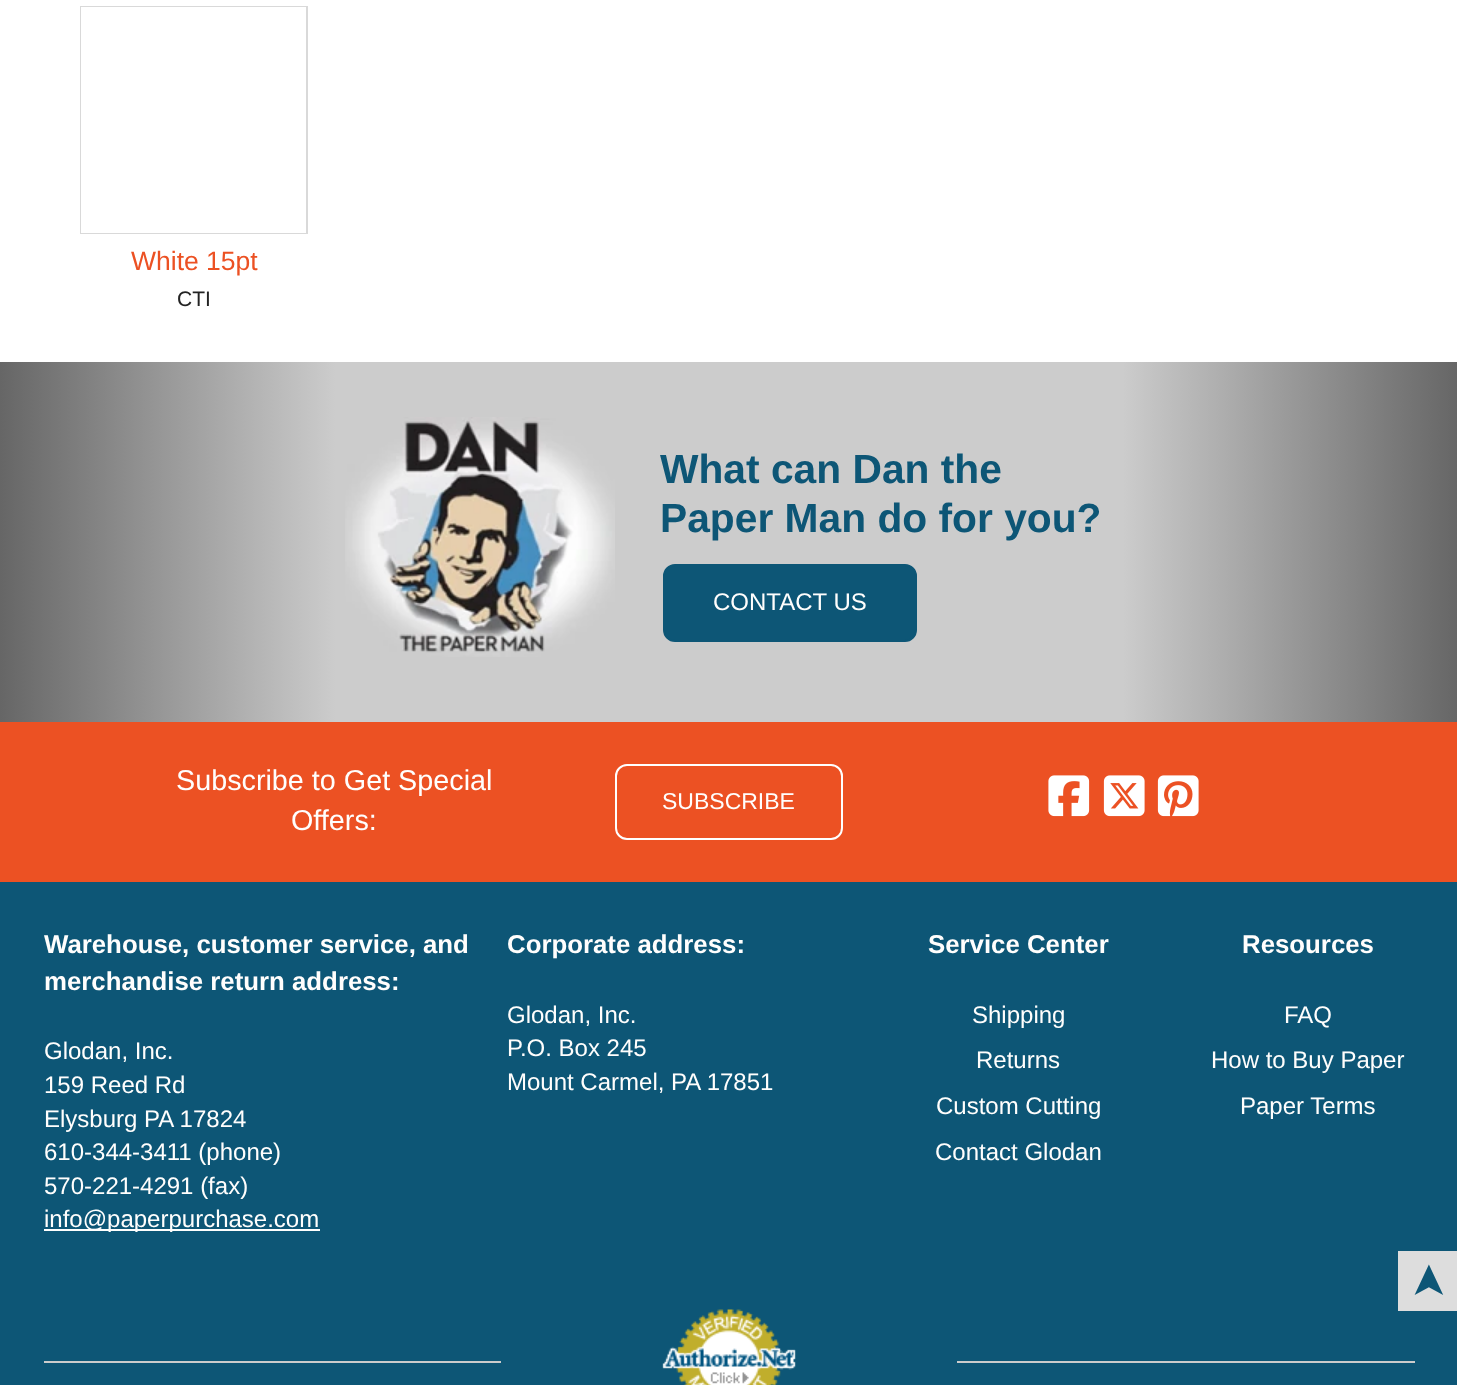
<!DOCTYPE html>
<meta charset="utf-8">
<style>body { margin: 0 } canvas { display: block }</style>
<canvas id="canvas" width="1457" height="1385"></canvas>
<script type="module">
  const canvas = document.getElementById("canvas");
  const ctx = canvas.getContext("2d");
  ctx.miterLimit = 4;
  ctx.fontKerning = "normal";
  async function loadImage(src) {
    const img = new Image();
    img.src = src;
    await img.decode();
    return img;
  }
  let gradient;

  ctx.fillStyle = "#ffffff";
  ctx.fillRect(0, 0, 1457, 1385);
  ctx.strokeStyle = "#d9d9d9";
  ctx.lineWidth = 2;
  ctx.strokeRect(81, 7, 226, 226);
  ctx.fillRect(81, 7, 225, 226);
  ctx.font = "26.5px Liberation Sans";
  ctx.fillStyle = "#ec5123";
  ctx.fillText("White 15pt", 131, 270);
  ctx.font = "21px Liberation Sans";
  ctx.fillStyle = "#232323";
  ctx.fillText("CTI", 177, 306);
  ctx.fillStyle = "#0d5676";
  ctx.fillRect(0, 882, 1457, 503);
  gradient = ctx.createLinearGradient(0, 542, 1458, 541);
  gradient.addColorStop(0, "#666666");
  gradient.addColorStop(0.23, "#cccccc");
  gradient.addColorStop(0.77, "#cccccc");
  gradient.addColorStop(1, "#666666");
  ctx.fillStyle = gradient;
  ctx.fillRect(0, 362, 1457, 360);
  ctx.drawImage(await loadImage("img1.png"), 345, 417, 270, 240);
  ctx.font = "bold 40.75px Liberation Sans";
  ctx.fillStyle = "#0d5676";
  ctx.fillText("What can Dan the", 660, 483);
  ctx.fillText("Paper Man do for you?", 660, 532);
  ctx.beginPath();
  ctx.roundRect(664, 565, 252, 76, 11);
  ctx.fill();
  ctx.strokeStyle = "#0d5676";
  ctx.stroke();
  ctx.font = "24px Liberation Sans";
  ctx.fillStyle = "#fffefd";
  ctx.fillText("CONTACT US", 713, 610);
  ctx.fillStyle = "#ec5123";
  ctx.fillRect(0, 722, 1457, 160);
  ctx.font = "28.75px Liberation Sans";
  ctx.fillStyle = "#fffefd";
  ctx.fillText("Subscribe to Get Special", 176, 790);
  ctx.fillText("Offers:", 291, 830);
  ctx.beginPath();
  ctx.roundRect(616, 765, 226, 74, 11);
  ctx.strokeStyle = "#ffffff";
  ctx.stroke();
  ctx.font = "23px Liberation Sans";
  ctx.fillText("SUBSCRIBE", 662, 809);
  ctx.drawImage(await loadImage("img2.png"), 1048, 775, 42, 42);
  ctx.drawImage(await loadImage("img3.png"), 1103, 775, 42, 42);
  ctx.drawImage(await loadImage("img4.png"), 1157, 775, 42, 42);
  ctx.font = "bold 25.8px Liberation Sans";
  ctx.fillText("Warehouse, customer service, and", 44, 953);
  ctx.fillText("merchandise return address:", 44, 990);
  ctx.font = "24px Liberation Sans";
  ctx.fillText("Glodan, Inc.", 44, 1059);
  ctx.fillText("159 Reed Rd", 44, 1093);
  ctx.fillText("Elysburg PA 17824", 44, 1127);
  ctx.fillText("610-344-3411 (phone)", 44, 1160);
  ctx.fillText("570-221-4291 (fax)", 44, 1194);
  ctx.fillStyle = "#fffffe";
  ctx.fillRect(44, 1229, 276, 2);
  ctx.fillStyle = "#fffefd";
  ctx.fillText("info@paperpurchase.com", 44, 1227);
  ctx.font = "bold 25.8px Liberation Sans";
  ctx.fillText("Corporate address:", 507, 953);
  ctx.font = "24px Liberation Sans";
  ctx.fillText("Glodan, Inc.", 507, 1023);
  ctx.fillText("P.O. Box 245", 507, 1056);
  ctx.fillText("Mount Carmel, PA 17851", 507, 1090);
  ctx.font = "bold 25.8px Liberation Sans";
  ctx.fillText("Service Center", 928, 953);
  ctx.font = "24px Liberation Sans";
  ctx.fillText("Shipping", 972, 1023);
  ctx.fillText("Returns", 976, 1068);
  ctx.fillText("Custom Cutting", 936, 1114);
  ctx.fillText("Contact Glodan", 935, 1160);
  ctx.font = "bold 25.8px Liberation Sans";
  ctx.fillText("Resources", 1242, 953);
  ctx.font = "24px Liberation Sans";
  ctx.fillText("FAQ", 1284, 1023);
  ctx.fillText("How to Buy Paper", 1211, 1068);
  ctx.fillText("Paper Terms", 1240, 1114);
  ctx.fillStyle = "#cccccc";
  ctx.fillRect(44, 1361, 457, 2);
  ctx.drawImage(await loadImage("img5.png"), 662, 1309, 134, 76);
  ctx.fillRect(957, 1361, 458, 2);
  ctx.fillStyle = "#dddddd";
  ctx.fillRect(1398, 1251, 59, 60);
  ctx.font = "45px DejaVu Sans";
  ctx.fillStyle = "#0d5676";
  ctx.save();
  ctx.translate(1443, 1300);
  ctx.rotate(-90 * Math.PI / 180);
  ctx.fillText("➤", 0, 0);
  ctx.restore();
</script>
